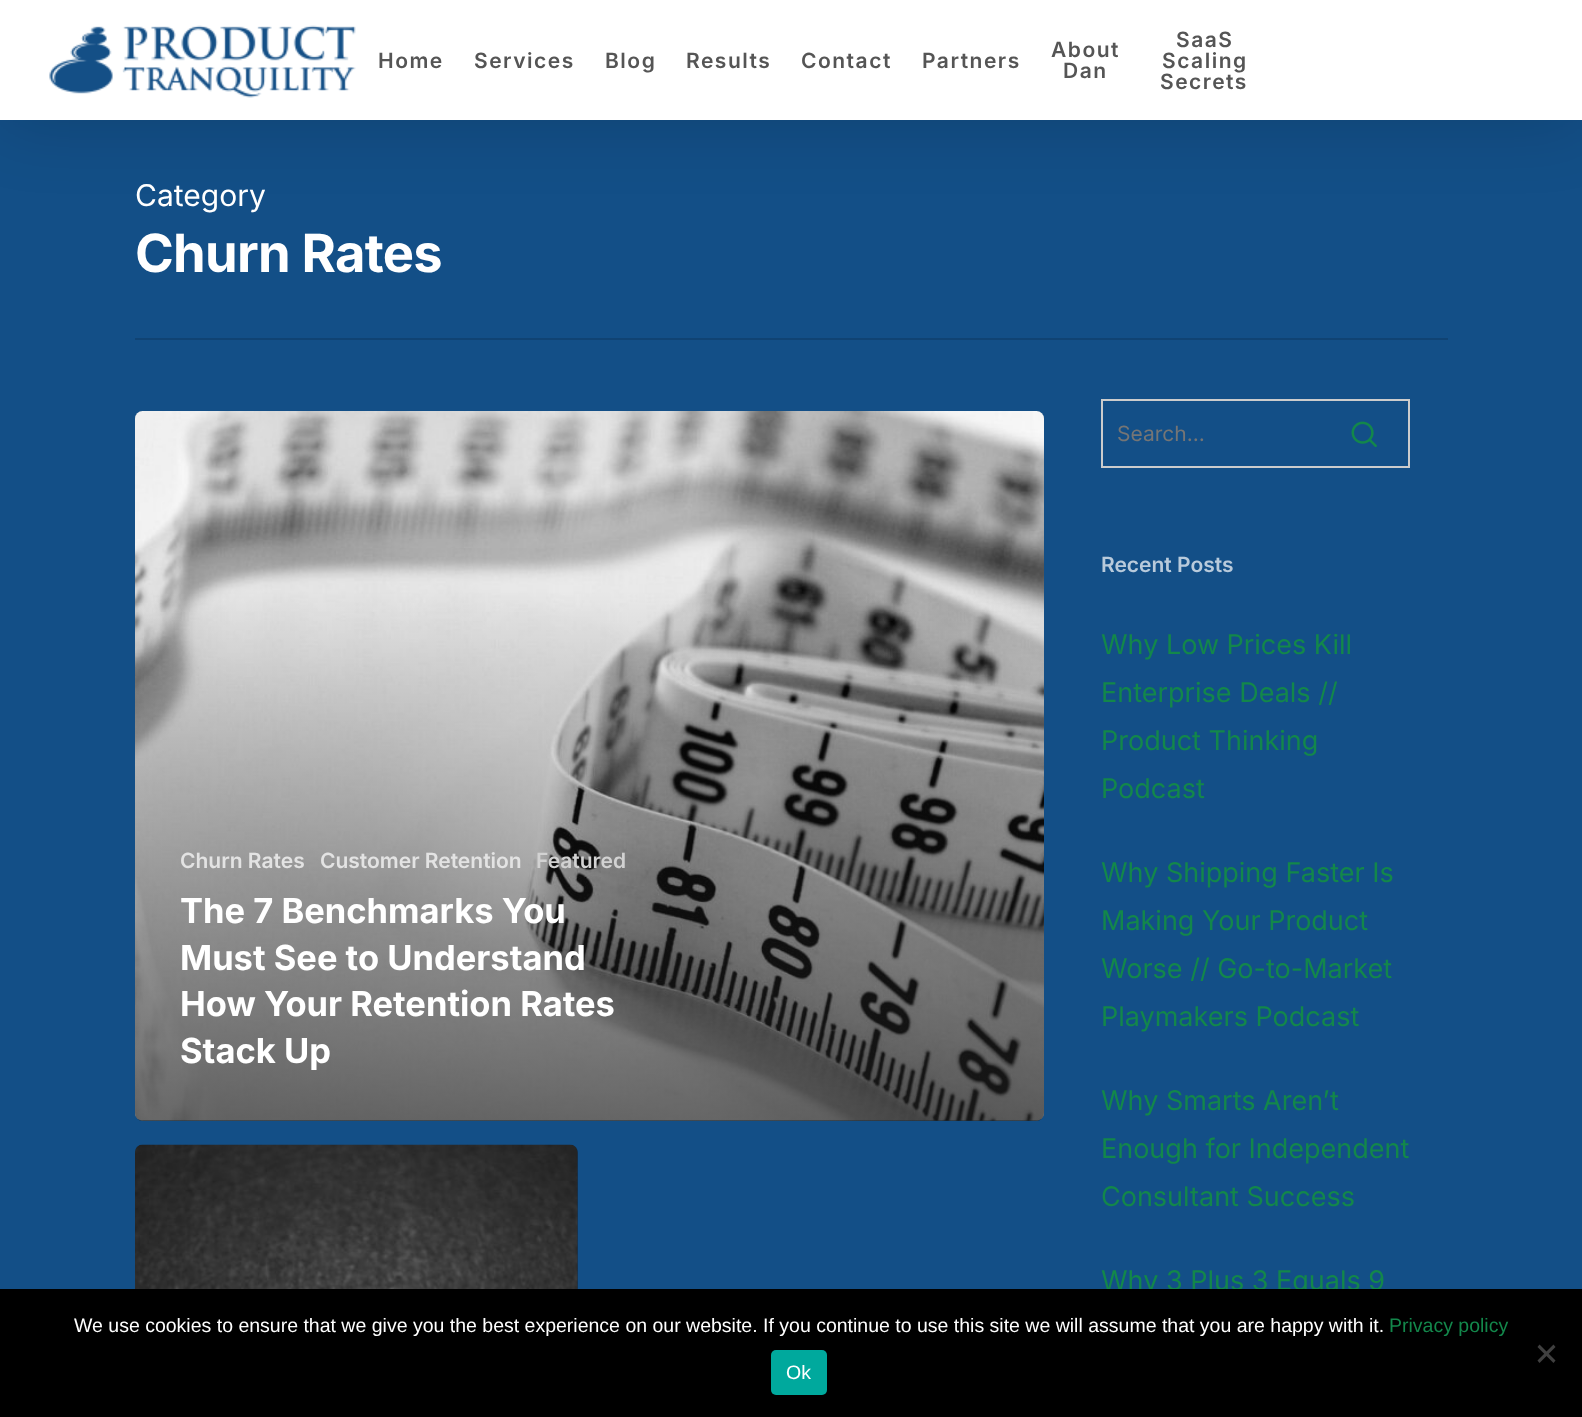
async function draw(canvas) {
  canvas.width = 1582
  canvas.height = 1417
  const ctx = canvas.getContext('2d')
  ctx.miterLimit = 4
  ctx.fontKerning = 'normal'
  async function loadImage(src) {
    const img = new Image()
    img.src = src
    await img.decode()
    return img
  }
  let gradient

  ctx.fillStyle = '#134f87'
  ctx.fillRect(0, 0, 1582, 1417)
  ctx.fillStyle = '#00000026'
  ctx.filter = 'blur(34px)'
  ctx.beginPath()
  ctx.rect(0, 5, 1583, 120)
  ctx.fill()
  ctx.filter = 'none'
  ctx.fillStyle = '#fff'
  ctx.fillRect(0, 0, 1582, 120)
  ctx.drawImage(await loadImage('image0.png'), 49, 25, 307, 73)
  ctx.letterSpacing = '1.5px'
  ctx.font = '600 21px Inter'
  ctx.fillStyle = '#555'
  ctx.fillText('Home', 378, 68)
  ctx.fillText('Services', 474, 68)
  ctx.fillText('Blog', 605, 68)
  ctx.fillText('Results', 686, 68)
  ctx.fillText('Contact', 801, 68)
  ctx.fillText('Partners', 922, 68)
  ctx.fillText('About', 1051, 57)
  ctx.fillText('Dan', 1063, 78)
  ctx.fillText('SaaS', 1176, 47)
  ctx.fillText('Scaling', 1162, 68)
  ctx.fillText('Secrets', 1160, 89)
  ctx.fillStyle = '#104373'
  ctx.fillRect(135, 338, 1313, 2)
  ctx.letterSpacing = '0px'
  ctx.font = '30px Inter'
  ctx.fillStyle = '#fff'
  ctx.fillText('Category', 135, 206)
  ctx.letterSpacing = '-0.75px'
  ctx.font = 'bold 52.5px Inter'
  ctx.fillText('Churn Rates', 135, 272)
  ctx.fillStyle = '#0d385f'
  ctx.beginPath()
  ctx.roundRect(135, 411, 909, 710, 8)
  ctx.fill()
  ctx.drawImage(await loadImage('image1.png'), 135, 411, 909, 710)
  gradient = ctx.createLinearGradient(592, 590, 592, 1124)
  gradient.addColorStop(0, '#23232300')
  gradient.addColorStop(1, '#232323a6')
  ctx.fillStyle = gradient
  ctx.beginPath()
  ctx.roundRect(135, 590, 909, 531, [0, 0, 8, 8])
  ctx.fill()
  ctx.letterSpacing = '0px'
  ctx.font = '600 21px Inter'
  ctx.fillStyle = '#e3e3e3'
  ctx.fillText('Churn Rates', 180, 868)
  ctx.fillText('Customer Retention', 320, 868)
  ctx.fillStyle = '#d2d2d2'
  ctx.fillText('Featured', 536, 868)
  ctx.font = 'bold 34.5px Inter'
  ctx.fillStyle = '#fff'
  ctx.fillText('The 7 Benchmarks You', 180, 923)
  ctx.fillText('Must See to Understand', 180, 970)
  ctx.fillText('How Your Retention Rates', 180, 1016)
  ctx.fillText('Stack Up', 180, 1063)
  ctx.fillStyle = '#0d375f'
  ctx.beginPath()
  ctx.roundRect(135, 1145, 443, 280, 8)
  ctx.fill()
  ctx.drawImage(await loadImage('image2.png'), 135, 1144, 443, 145)
  ctx.strokeStyle = '#ccc'
  ctx.lineWidth = 2
  ctx.strokeRect(1102, 400, 307, 67)
  ctx.font = '21px Inter'
  ctx.fillStyle = '#757575'
  ctx.fillText('Search...', 1117, 441)
  ctx.drawImage(await loadImage('image3.png'), 1351, 421, 26, 26)
  ctx.font = '600 21px Inter'
  ctx.fillStyle = '#b8cadb'
  ctx.fillText('Recent Posts', 1101, 572)
  ctx.font = '27px Inter'
  ctx.fillStyle = '#13874b'
  ctx.fillText('Why Low Prices Kill', 1101, 654)
  ctx.fillText('Enterprise Deals //', 1101, 702)
  ctx.fillText('Product Thinking', 1101, 750)
  ctx.fillText('Podcast', 1101, 798)
  ctx.fillText('Why Shipping Faster Is', 1101, 882)
  ctx.fillText('Making Your Product', 1101, 930)
  ctx.fillText('Worse // Go-to-Market', 1101, 978)
  ctx.fillText('Playmakers Podcast', 1101, 1026)
  ctx.fillText('Why Smarts Aren’t', 1101, 1110)
  ctx.fillText('Enough for Independent', 1101, 1158)
  ctx.fillText('Consultant Success', 1101, 1206)
  ctx.fillText('Why 3 Plus 3 Equals 9', 1101, 1290)
  ctx.fillStyle = '#000'
  ctx.fillRect(0, 1289, 1582, 128)
  ctx.font = '19.5px Liberation Sans'
  ctx.fillStyle = '#fff'
  ctx.fillText('We use cookies to ensure that we give you the best experience on our website. If you continue to use this site we will assume that you are happy with it.', 74, 1332)
  ctx.fillStyle = '#13874b'
  ctx.fillText('Privacy policy', 1389, 1332)
  ctx.fillStyle = '#404040'
  ctx.beginPath()
  ctx.moveTo(1553.5, 1344.5)
  ctx.lineTo(1555.5, 1347)
  ctx.lineTo(1539.5, 1363)
  ctx.lineTo(1537.5, 1360.5)
  ctx.closePath()
  ctx.fill()
  ctx.beginPath()
  ctx.moveTo(1537.5, 1347)
  ctx.lineTo(1539.5, 1344.5)
  ctx.lineTo(1555.5, 1360.5)
  ctx.lineTo(1553.5, 1363)
  ctx.closePath()
  ctx.fill()
  ctx.fillStyle = '#00a99d'
  ctx.beginPath()
  ctx.roundRect(771, 1350, 56, 45, 5)
  ctx.fill()
  ctx.fillStyle = '#fff'
  ctx.fillText('Ok', 786, 1379)
}

draw(document.querySelector('canvas'))
